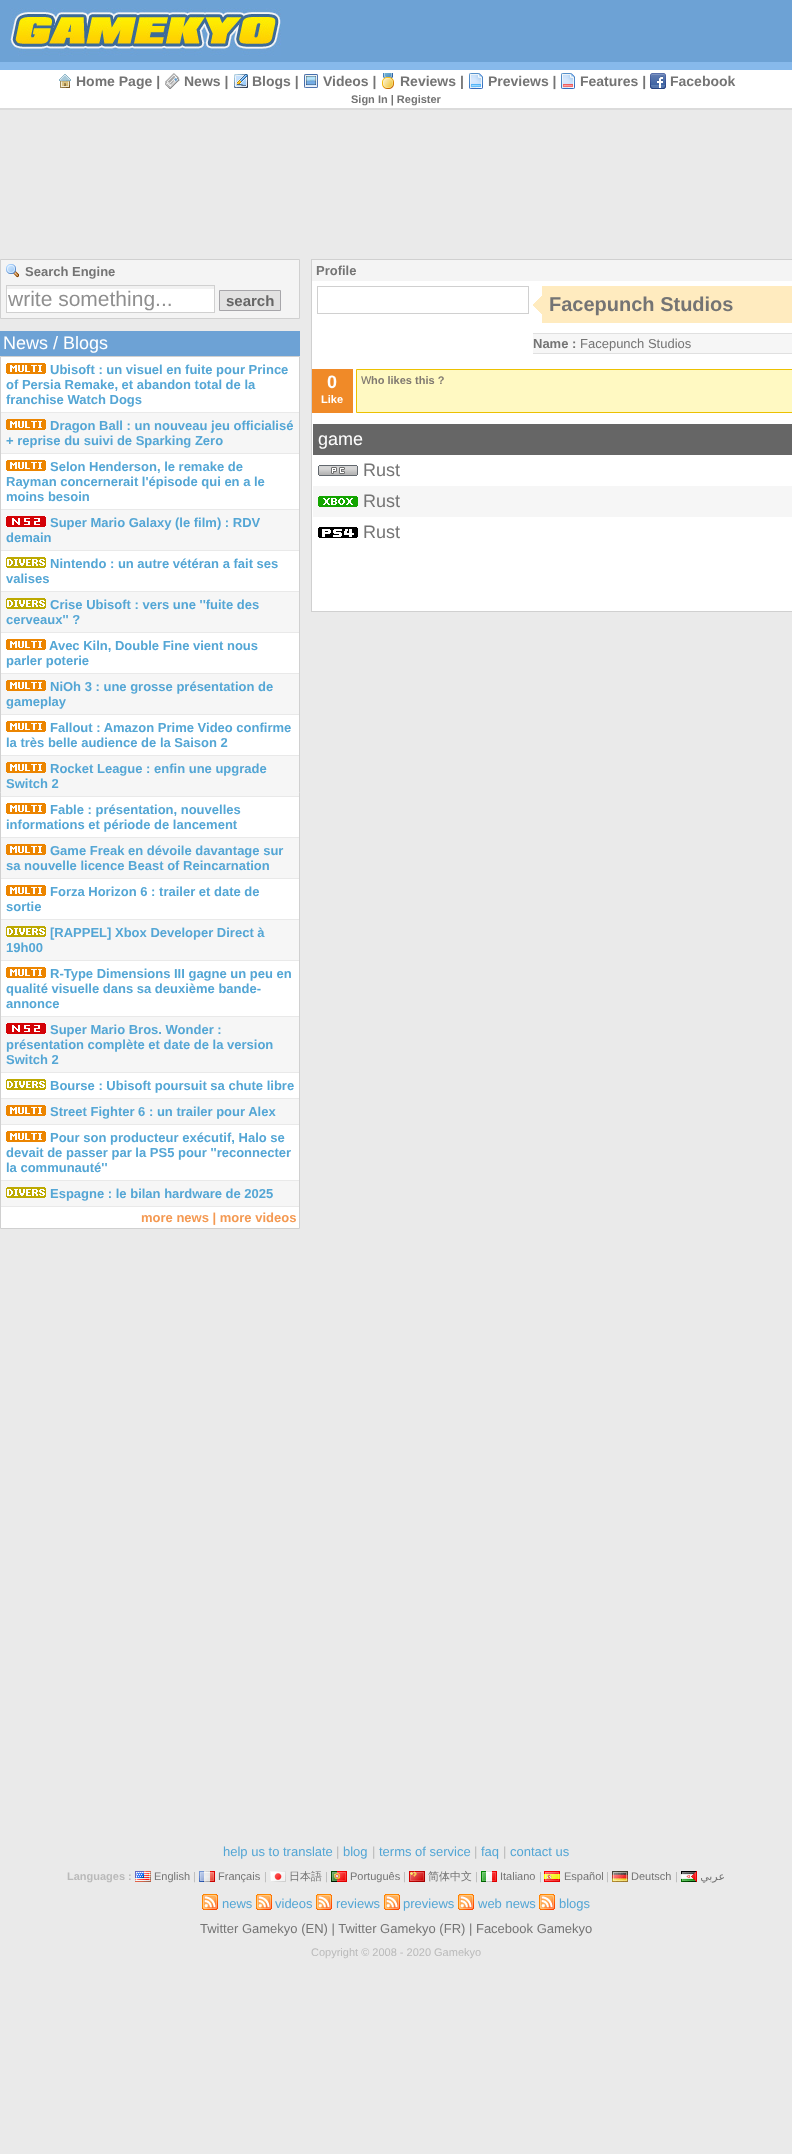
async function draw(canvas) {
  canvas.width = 792
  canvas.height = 2154
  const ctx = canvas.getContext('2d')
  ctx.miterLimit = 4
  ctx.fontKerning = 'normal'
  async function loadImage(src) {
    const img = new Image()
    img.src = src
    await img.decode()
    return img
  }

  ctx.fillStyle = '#eaeaea'
  ctx.fillRect(0, 0, 792, 2154)
  ctx.fillStyle = '#6da2d5'
  ctx.fillRect(0, 0, 792, 62)
  ctx.fillStyle = '#87b9eb'
  ctx.fillRect(0, 62, 792, 8)
  ctx.drawImage(await loadImage('image0.png'), 10, 8, 271, 48)
  ctx.fillStyle = '#fff'
  ctx.fillRect(0, 70, 792, 38)
  ctx.drawImage(await loadImage('image1.png'), 59, 74, 12, 14)
  ctx.font = 'bold 14px Liberation Sans'
  ctx.fillStyle = '#747474'
  ctx.fillText('Home Page |', 76, 86)
  ctx.drawImage(await loadImage('image2.png'), 165, 73, 15, 16)
  ctx.fillText('News |', 184, 86)
  ctx.drawImage(await loadImage('image3.png'), 234, 74, 14, 14)
  ctx.fillText('Blogs |', 252, 86)
  ctx.drawImage(await loadImage('image4.png'), 304, 74, 14, 14)
  ctx.fillText('Videos |', 323, 86)
  ctx.drawImage(await loadImage('image5.png'), 382, 73, 12, 16)
  ctx.fillText('Reviews |', 400, 86)
  ctx.drawImage(await loadImage('image6.png'), 469, 73, 14, 16)
  ctx.fillText('Previews |', 488, 86)
  ctx.drawImage(await loadImage('image7.png'), 561, 73, 14, 16)
  ctx.fillText('Features |', 580, 86)
  ctx.drawImage(await loadImage('image8.png'), 650, 73, 16, 16)
  ctx.fillText('Facebook', 670, 86)
  ctx.fillStyle = '#dbdbdb'
  ctx.fillRect(0, 108, 792, 2)
  ctx.font = 'bold 11px Liberation Sans'
  ctx.fillStyle = '#747474'
  ctx.fillText('Sign In | Register', 351, 103)
  ctx.fillStyle = '#f4f4f4'
  ctx.beginPath()
  ctx.rect(0.5, 259.5, 299, 59)
  ctx.fill()
  ctx.strokeStyle = '#d0d0d0'
  ctx.stroke()
  ctx.drawImage(await loadImage('image9.png'), 6, 264, 13, 14)
  ctx.font = 'bold 13px Liberation Sans'
  ctx.fillStyle = '#747474'
  ctx.fillText('Search Engine', 25, 276)
  ctx.fillStyle = '#fff'
  ctx.fillRect(7, 289, 207, 23)
  ctx.fillStyle = '#f1f1f1'
  ctx.fillRect(6, 286, 209, 3)
  ctx.strokeRect(6.5, 285.5, 208, 27)
  ctx.font = '21px Liberation Sans'
  ctx.fillStyle = '#8f8f8f'
  ctx.fillText('write something...', 8, 306)
  ctx.fillStyle = '#e2e2e2'
  ctx.beginPath()
  ctx.rect(219.5, 290.5, 61, 20)
  ctx.fill()
  ctx.strokeStyle = '#a7a6aa'
  ctx.stroke()
  ctx.font = 'bold 15px Liberation Sans'
  ctx.fillStyle = '#666'
  ctx.fillText('search', 226, 306)
  ctx.fillStyle = '#6da2d5'
  ctx.fillRect(0, 331, 300, 25)
  ctx.font = '18px Liberation Sans'
  ctx.fillStyle = '#fff'
  ctx.fillText('News / Blogs', 3, 349)
  ctx.beginPath()
  ctx.rect(0.5, 356.5, 299, 872)
  ctx.fill()
  ctx.strokeStyle = '#d0d0d0'
  ctx.stroke()
  ctx.fillStyle = '#e9e9e9'
  ctx.fillRect(1, 412, 298, 1)
  ctx.drawImage(await loadImage('image10.png'), 6, 363, 40, 11)
  ctx.font = 'bold 13px Liberation Sans'
  ctx.fillStyle = '#54a6d5'
  ctx.fillText('Ubisoft : un visuel en fuite pour Prince', 50, 374)
  ctx.fillText('of Persia Remake, et abandon total de la', 6, 389)
  ctx.fillText('franchise Watch Dogs', 6, 404)
  ctx.fillStyle = '#f6f6f6'
  ctx.fillRect(1, 413, 298, 40)
  ctx.fillStyle = '#e9e9e9'
  ctx.fillRect(1, 453, 298, 1)
  ctx.drawImage(await loadImage('image11.png'), 6, 419, 40, 11)
  ctx.fillStyle = '#54a6d5'
  ctx.fillText('Dragon Ball : un nouveau jeu officialisé', 50, 430)
  ctx.fillText('+ reprise du suivi de Sparking Zero', 6, 445)
  ctx.fillStyle = '#e9e9e9'
  ctx.fillRect(1, 509, 298, 1)
  ctx.drawImage(await loadImage('image10.png'), 6, 460, 40, 11)
  ctx.fillStyle = '#54a6d5'
  ctx.fillText('Selon Henderson, le remake de', 50, 471)
  ctx.fillText('Rayman concernerait l\'épisode qui en a le', 6, 486)
  ctx.fillText('moins besoin', 6, 501)
  ctx.fillStyle = '#f6f6f6'
  ctx.fillRect(1, 510, 298, 40)
  ctx.fillStyle = '#e9e9e9'
  ctx.fillRect(1, 550, 298, 1)
  ctx.drawImage(await loadImage('image12.png'), 6, 516, 40, 11)
  ctx.fillStyle = '#54a6d5'
  ctx.fillText('Super Mario Galaxy (le film) : RDV', 50, 527)
  ctx.fillText('demain', 6, 542)
  ctx.fillStyle = '#e9e9e9'
  ctx.fillRect(1, 591, 298, 1)
  ctx.drawImage(await loadImage('image13.png'), 6, 557, 40, 11)
  ctx.fillStyle = '#54a6d5'
  ctx.fillText('Nintendo : un autre vétéran a fait ses', 50, 568)
  ctx.fillText('valises', 6, 583)
  ctx.fillStyle = '#f6f6f6'
  ctx.fillRect(1, 592, 298, 40)
  ctx.fillStyle = '#e9e9e9'
  ctx.fillRect(1, 632, 298, 1)
  ctx.drawImage(await loadImage('image14.png'), 6, 598, 40, 11)
  ctx.fillStyle = '#54a6d5'
  ctx.fillText('Crise Ubisoft : vers une \'\'fuite des', 50, 609)
  ctx.fillText('cerveaux\'\' ?', 6, 624)
  ctx.fillStyle = '#e9e9e9'
  ctx.fillRect(1, 673, 298, 1)
  ctx.drawImage(await loadImage('image10.png'), 6, 639, 40, 11)
  ctx.fillStyle = '#54a6d5'
  ctx.fillText('Avec Kiln, Double Fine vient nous', 49, 650)
  ctx.fillText('parler poterie', 6, 665)
  ctx.fillStyle = '#f6f6f6'
  ctx.fillRect(1, 674, 298, 40)
  ctx.fillStyle = '#e9e9e9'
  ctx.fillRect(1, 714, 298, 1)
  ctx.drawImage(await loadImage('image11.png'), 6, 680, 40, 11)
  ctx.fillStyle = '#54a6d5'
  ctx.fillText('NiOh 3 : une grosse présentation de', 50, 691)
  ctx.fillText('gameplay', 6, 706)
  ctx.fillStyle = '#e9e9e9'
  ctx.fillRect(1, 755, 298, 1)
  ctx.drawImage(await loadImage('image10.png'), 6, 721, 40, 11)
  ctx.fillStyle = '#54a6d5'
  ctx.fillText('Fallout : Amazon Prime Video confirme', 50, 732)
  ctx.fillText('la très belle audience de la Saison 2', 6, 747)
  ctx.fillStyle = '#f6f6f6'
  ctx.fillRect(1, 756, 298, 40)
  ctx.fillStyle = '#e9e9e9'
  ctx.fillRect(1, 796, 298, 1)
  ctx.drawImage(await loadImage('image11.png'), 6, 762, 40, 11)
  ctx.fillStyle = '#54a6d5'
  ctx.fillText('Rocket League : enfin une upgrade', 50, 773)
  ctx.fillText('Switch 2', 6, 788)
  ctx.fillStyle = '#e9e9e9'
  ctx.fillRect(1, 837, 298, 1)
  ctx.drawImage(await loadImage('image10.png'), 6, 803, 40, 11)
  ctx.fillStyle = '#54a6d5'
  ctx.fillText('Fable : présentation, nouvelles', 50, 814)
  ctx.fillText('informations et période de lancement', 6, 829)
  ctx.fillStyle = '#f6f6f6'
  ctx.fillRect(1, 838, 298, 40)
  ctx.fillStyle = '#e9e9e9'
  ctx.fillRect(1, 878, 298, 1)
  ctx.drawImage(await loadImage('image11.png'), 6, 844, 40, 11)
  ctx.fillStyle = '#54a6d5'
  ctx.fillText('Game Freak en dévoile davantage sur', 50, 855)
  ctx.fillText('sa nouvelle licence Beast of Reincarnation', 6, 870)
  ctx.fillStyle = '#e9e9e9'
  ctx.fillRect(1, 919, 298, 1)
  ctx.drawImage(await loadImage('image10.png'), 6, 885, 40, 11)
  ctx.fillStyle = '#54a6d5'
  ctx.fillText('Forza Horizon 6 : trailer et date de', 50, 896)
  ctx.fillText('sortie', 6, 911)
  ctx.fillStyle = '#f6f6f6'
  ctx.fillRect(1, 920, 298, 40)
  ctx.fillStyle = '#e9e9e9'
  ctx.fillRect(1, 960, 298, 1)
  ctx.drawImage(await loadImage('image14.png'), 6, 926, 40, 11)
  ctx.fillStyle = '#54a6d5'
  ctx.fillText('[RAPPEL] Xbox Developer Direct à', 50, 937)
  ctx.fillText('19h00', 6, 952)
  ctx.fillStyle = '#e9e9e9'
  ctx.fillRect(1, 1016, 298, 1)
  ctx.drawImage(await loadImage('image10.png'), 6, 967, 40, 11)
  ctx.fillStyle = '#54a6d5'
  ctx.fillText('R-Type Dimensions III gagne un peu en', 50, 978)
  ctx.fillText('qualité visuelle dans sa deuxième bande-', 6, 993)
  ctx.fillText('annonce', 6, 1008)
  ctx.fillStyle = '#f6f6f6'
  ctx.fillRect(1, 1017, 298, 55)
  ctx.fillStyle = '#e9e9e9'
  ctx.fillRect(1, 1072, 298, 1)
  ctx.drawImage(await loadImage('image12.png'), 6, 1023, 40, 11)
  ctx.fillStyle = '#54a6d5'
  ctx.fillText('Super Mario Bros. Wonder :', 50, 1034)
  ctx.fillText('présentation complète et date de la version', 6, 1049)
  ctx.fillText('Switch 2', 6, 1064)
  ctx.fillStyle = '#e9e9e9'
  ctx.fillRect(1, 1098, 298, 1)
  ctx.drawImage(await loadImage('image13.png'), 6, 1079, 40, 11)
  ctx.fillStyle = '#54a6d5'
  ctx.fillText('Bourse : Ubisoft poursuit sa chute libre', 50, 1090)
  ctx.fillStyle = '#f6f6f6'
  ctx.fillRect(1, 1099, 298, 25)
  ctx.fillStyle = '#e9e9e9'
  ctx.fillRect(1, 1124, 298, 1)
  ctx.drawImage(await loadImage('image11.png'), 6, 1105, 40, 11)
  ctx.fillStyle = '#54a6d5'
  ctx.fillText('Street Fighter 6 : un trailer pour Alex', 50, 1116)
  ctx.fillStyle = '#e9e9e9'
  ctx.fillRect(1, 1180, 298, 1)
  ctx.drawImage(await loadImage('image10.png'), 6, 1131, 40, 11)
  ctx.fillStyle = '#54a6d5'
  ctx.fillText('Pour son producteur exécutif, Halo se', 50, 1142)
  ctx.fillText('devait de passer par la PS5 pour \'\'reconnecter', 6, 1157)
  ctx.fillText('la communauté\'\'', 6, 1172)
  ctx.fillStyle = '#f6f6f6'
  ctx.fillRect(1, 1181, 298, 25)
  ctx.fillStyle = '#e9e9e9'
  ctx.fillRect(1, 1206, 298, 1)
  ctx.drawImage(await loadImage('image14.png'), 6, 1187, 40, 11)
  ctx.fillStyle = '#54a6d5'
  ctx.fillText('Espagne : le bilan hardware de 2025', 50, 1198)
  ctx.fillStyle = '#f49952'
  ctx.fillText('more news | more videos', 141, 1222)
  ctx.fillStyle = '#f4f4f4'
  ctx.fillRect(312, 260, 480, 21)
  ctx.strokeRect(311.5, 259.5, 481, 352)
  ctx.fillStyle = '#747474'
  ctx.fillText('Profile', 316, 275)
  ctx.fillStyle = '#fff'
  ctx.fillRect(312, 281, 480, 330)
  ctx.strokeRect(317.5, 286.5, 211, 27)
  ctx.drawImage(await loadImage('image15.png'), 533, 296, 9, 18)
  ctx.fillStyle = '#ffebbf'
  ctx.fillRect(542, 286, 250, 37)
  ctx.font = 'bold 20px Liberation Sans'
  ctx.fillStyle = '#747474'
  ctx.fillText('Facepunch Studios', 549, 311)
  ctx.fillStyle = '#f6f6f6'
  ctx.fillRect(533, 334, 259, 19)
  ctx.fillStyle = '#e0e0e0'
  ctx.fillRect(533, 333, 259, 1)
  ctx.fillRect(533, 353, 259, 1)
  ctx.font = 'bold 13px Liberation Sans'
  ctx.fillStyle = '#747474'
  ctx.fillText('Name :', 533, 348)
  ctx.font = '13px Liberation Sans'
  ctx.fillText('Facepunch Studios', 580, 348)
  ctx.fillStyle = '#f08a28'
  ctx.fillRect(312, 369, 41, 44)
  ctx.font = 'bold 18px Liberation Sans'
  ctx.fillStyle = '#fff'
  ctx.fillText('0', 327, 388)
  ctx.font = 'bold 11px Liberation Sans'
  ctx.fillText('Like', 321, 403)
  ctx.fillStyle = '#fff9c2'
  ctx.beginPath()
  ctx.rect(356.5, 369.5, 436, 43)
  ctx.fill()
  ctx.strokeStyle = '#ecc101'
  ctx.stroke()
  ctx.font = '500 11px Noto Sans'
  ctx.fillStyle = '#817a71'
  ctx.fillText('W', 361, 384)
  ctx.font = 'bold 11px Liberation Sans'
  ctx.fillText('ho likes this ?', 371, 384)
  ctx.fillStyle = '#666'
  ctx.fillRect(313, 424, 479, 31)
  ctx.font = '18px Liberation Sans'
  ctx.fillStyle = '#fff'
  ctx.fillText('game', 318, 445)
  ctx.drawImage(await loadImage('image16.png'), 318, 465, 40, 11)
  ctx.fillStyle = '#747474'
  ctx.fillText('Rust', 363, 476)
  ctx.fillStyle = '#f6f6f6'
  ctx.fillRect(313, 486, 479, 31)
  ctx.drawImage(await loadImage('image17.png'), 318, 496, 40, 11)
  ctx.fillStyle = '#747474'
  ctx.fillText('Rust', 363, 507)
  ctx.drawImage(await loadImage('image18.png'), 318, 527, 40, 11)
  ctx.fillText('Rust', 363, 538)
  ctx.font = '13px Liberation Sans'
  ctx.fillStyle = '#54a6d5'
  ctx.fillText('help us to translate', 223, 1856)
  ctx.fillStyle = '#bababa'
  ctx.fillText('|', 336, 1856)
  ctx.fillStyle = '#54a6d5'
  ctx.fillText('blog', 343, 1856)
  ctx.fillStyle = '#bababa'
  ctx.fillText('|', 372, 1856)
  ctx.fillStyle = '#54a6d5'
  ctx.fillText('terms of service', 379, 1856)
  ctx.fillStyle = '#bababa'
  ctx.fillText('|', 474, 1856)
  ctx.fillStyle = '#54a6d5'
  ctx.fillText('faq', 481, 1856)
  ctx.fillStyle = '#bababa'
  ctx.fillText('|', 503, 1856)
  ctx.fillStyle = '#54a6d5'
  ctx.fillText('contact us', 510, 1856)
  ctx.font = 'bold 11px Liberation Sans'
  ctx.fillStyle = '#bababa'
  ctx.fillText('Languages :', 67, 1880)
  ctx.drawImage(await loadImage('image19.png'), 135, 1871, 16, 11)
  ctx.font = '11px Liberation Sans'
  ctx.fillStyle = '#747474'
  ctx.fillText('English', 154, 1880)
  ctx.fillStyle = '#bababa'
  ctx.fillText('|', 193, 1880)
  ctx.drawImage(await loadImage('image20.png'), 199, 1871, 16, 11)
  ctx.fillStyle = '#747474'
  ctx.fillText('Français', 218, 1880)
  ctx.fillStyle = '#bababa'
  ctx.fillText('|', 264, 1880)
  ctx.drawImage(await loadImage('image21.png'), 270, 1871, 16, 11)
  ctx.font = '500 11px WenQuanYi Zen Hei'
  ctx.fillStyle = '#747474'
  ctx.fillText('日本語', 289, 1880)
  ctx.font = '11px Liberation Sans'
  ctx.fillStyle = '#bababa'
  ctx.fillText('|', 325, 1880)
  ctx.drawImage(await loadImage('image22.png'), 331, 1871, 16, 11)
  ctx.fillStyle = '#747474'
  ctx.fillText('Português', 350, 1880)
  ctx.fillStyle = '#bababa'
  ctx.fillText('|', 403, 1880)
  ctx.drawImage(await loadImage('image23.png'), 409, 1871, 16, 11)
  ctx.font = '500 11px WenQuanYi Zen Hei'
  ctx.fillStyle = '#747474'
  ctx.fillText('简体中文', 428, 1880)
  ctx.font = '11px Liberation Sans'
  ctx.fillStyle = '#bababa'
  ctx.fillText('|', 475, 1880)
  ctx.drawImage(await loadImage('image24.png'), 481, 1871, 16, 11)
  ctx.fillStyle = '#747474'
  ctx.fillText('Italiano', 500, 1880)
  ctx.fillStyle = '#bababa'
  ctx.fillText('|', 539, 1880)
  ctx.drawImage(await loadImage('image25.png'), 544, 1871, 16, 11)
  ctx.fillStyle = '#747474'
  ctx.fillText('Español', 564, 1880)
  ctx.fillStyle = '#bababa'
  ctx.fillText('|', 606, 1880)
  ctx.drawImage(await loadImage('image26.png'), 612, 1871, 16, 11)
  ctx.fillStyle = '#747474'
  ctx.fillText('Deutsch', 631, 1880)
  ctx.fillStyle = '#bababa'
  ctx.fillText('|', 675, 1880)
  ctx.drawImage(await loadImage('image27.png'), 681, 1871, 16, 11)
  ctx.direction = 'rtl'
  ctx.font = '11px DejaVu Sans'
  ctx.fillStyle = '#747474'
  ctx.fillText('عربي', 725, 1880)
  ctx.drawImage(await loadImage('image28.png'), 202, 1894, 16, 16)
  ctx.direction = 'ltr'
  ctx.font = '13px Liberation Sans'
  ctx.fillStyle = '#54a6d5'
  ctx.fillText('news', 222, 1908)
  ctx.drawImage(await loadImage('image28.png'), 256, 1894, 16, 16)
  ctx.fillText('videos', 275, 1908)
  ctx.drawImage(await loadImage('image28.png'), 316, 1894, 16, 16)
  ctx.fillText('reviews', 336, 1908)
  ctx.drawImage(await loadImage('image28.png'), 384, 1894, 16, 16)
  ctx.fillText('previews', 403, 1908)
  ctx.drawImage(await loadImage('image28.png'), 458, 1894, 16, 16)
  ctx.fillText('web news', 478, 1908)
  ctx.drawImage(await loadImage('image28.png'), 539, 1894, 16, 16)
  ctx.fillText('blogs', 559, 1908)
  ctx.fillStyle = '#747474'
  ctx.fillText('Twitter Gamekyo (EN) | Twitter Gamekyo (FR) | Facebook Gamekyo', 200, 1933)
  ctx.font = '11px Liberation Sans'
  ctx.fillStyle = '#bababa'
  ctx.fillText('Copyright © 2008 - 2020 Gamekyo', 311, 1956)
}

draw(document.querySelector('canvas'))
